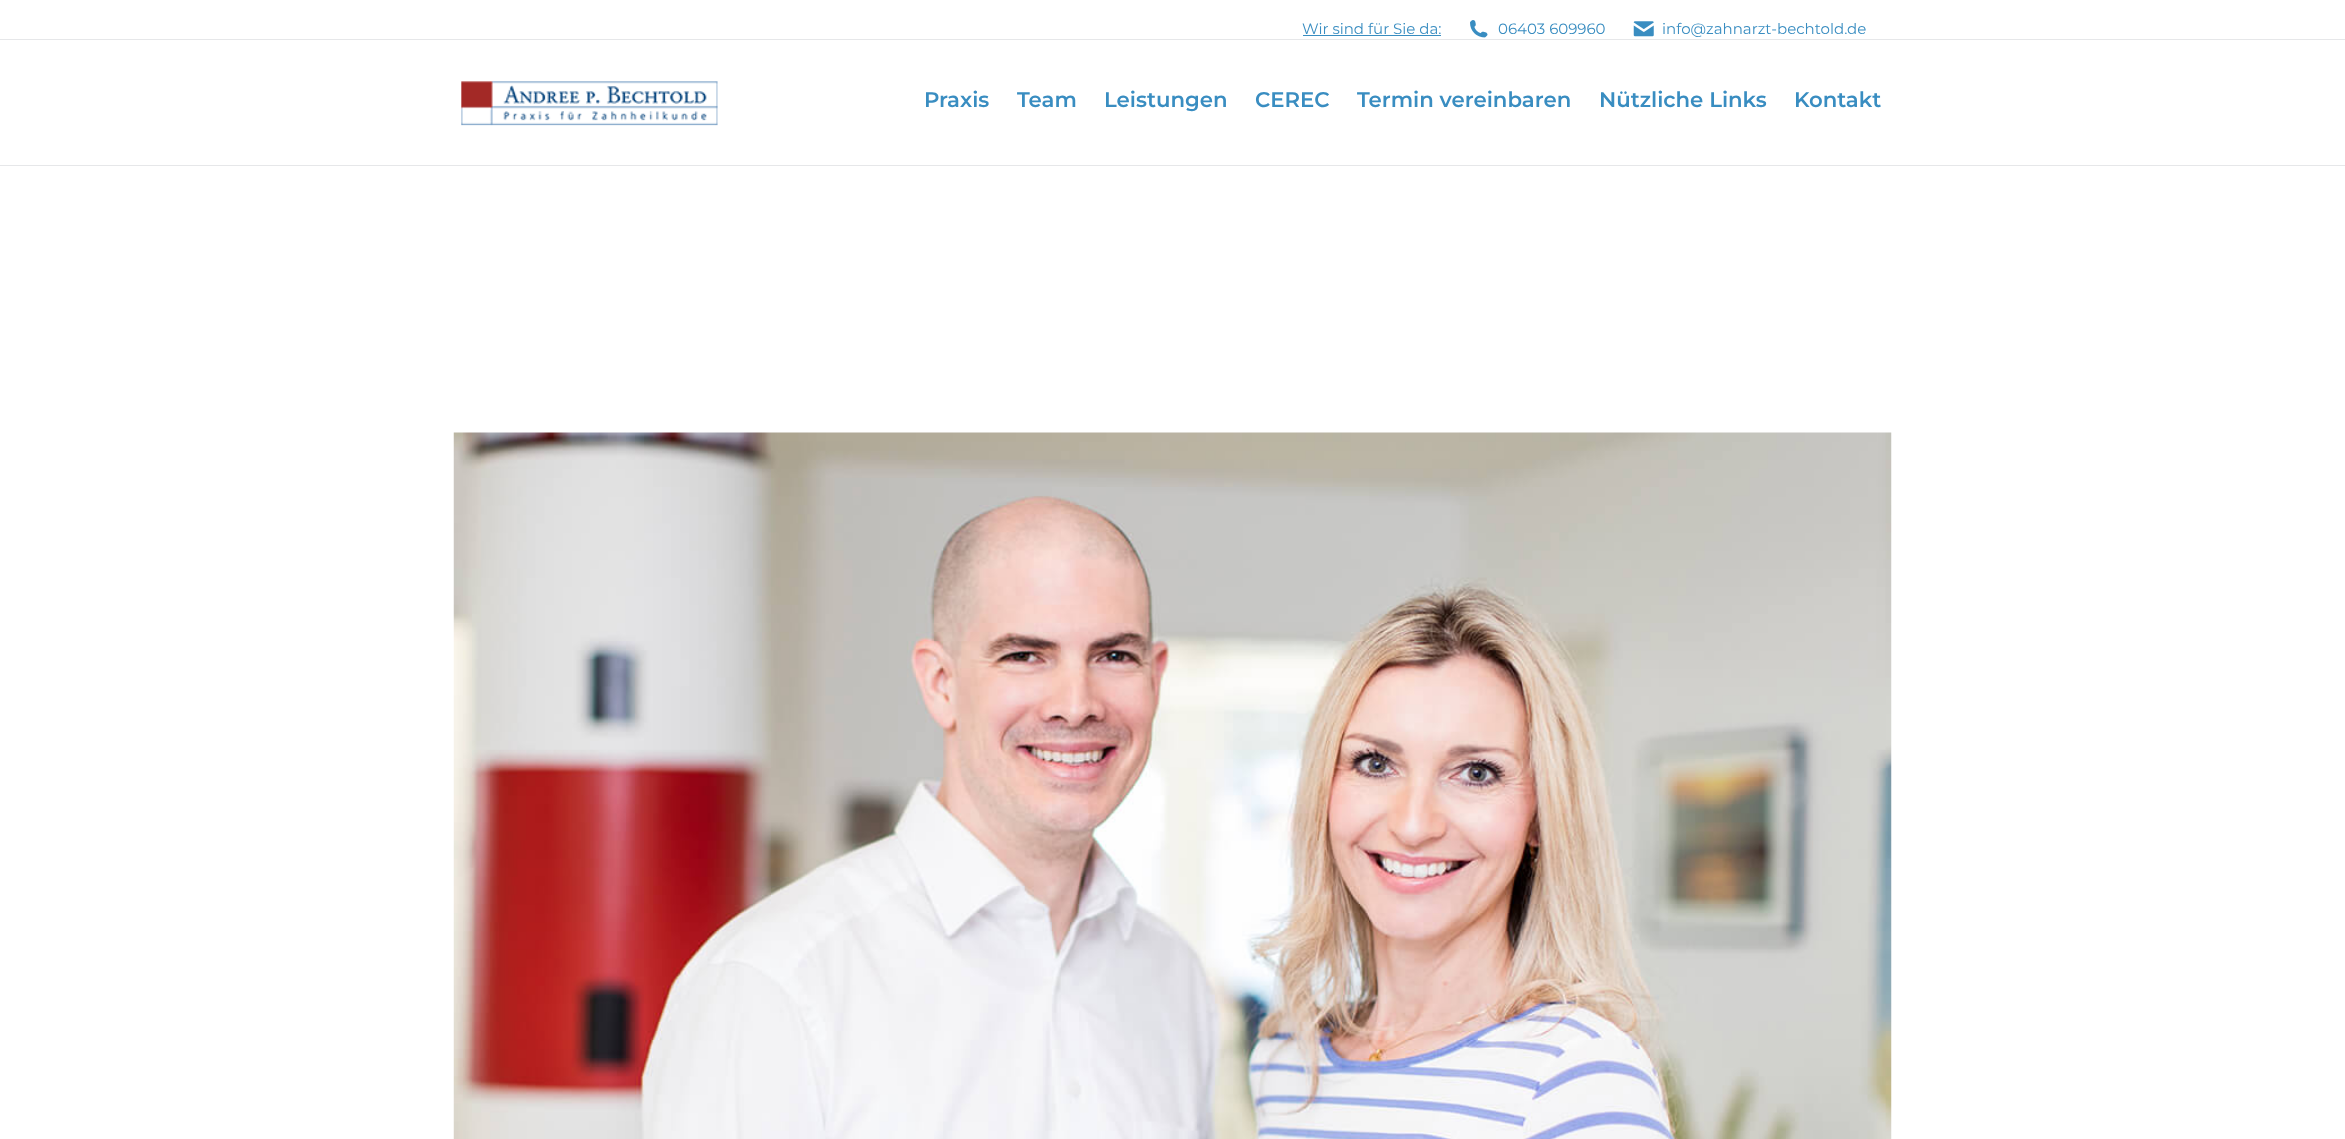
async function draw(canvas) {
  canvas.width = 2345
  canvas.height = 1139
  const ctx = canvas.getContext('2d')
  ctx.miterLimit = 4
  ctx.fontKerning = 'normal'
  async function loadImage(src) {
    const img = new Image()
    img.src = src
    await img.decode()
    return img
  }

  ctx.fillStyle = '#fff'
  ctx.fillRect(0, 0, 2345, 1139)
  ctx.fillStyle = '#e6e7e9'
  ctx.fillRect(0, 165, 2345, 1)
  ctx.font = '15px Montserrat'
  ctx.fillStyle = '#398dc1'
  ctx.fillText('Wir sind für Sie da:', 1302, 34)
  ctx.fillRect(1303, 35, 138, 1)
  ctx.drawImage(await loadImage('image0.png'), 1470, 20, 18, 18)
  ctx.fillText('06403 609960', 1498, 34)
  ctx.drawImage(await loadImage('image1.png'), 1633, 21, 21, 16)
  ctx.fillText('info@zahnarzt-bechtold.de', 1662, 34)
  ctx.fillStyle = '#e6e7e9'
  ctx.fillRect(0, 39, 2345, 1)
  ctx.drawImage(await loadImage('image2.png'), 461, 81, 257, 45)
  ctx.font = '600 21.25px Montserrat'
  ctx.fillStyle = '#398dc1'
  ctx.fillText('Praxis', 924, 107)
  ctx.fillText('Team', 1017, 107)
  ctx.fillText('Leistungen', 1104, 107)
  ctx.fillText('CEREC', 1255, 107)
  ctx.fillText('Termin vereinbaren', 1357, 107)
  ctx.fillText('Nützliche Links', 1599, 107)
  ctx.fillText('Kontakt', 1794, 107)
  ctx.drawImage(await loadImage('image3.png'), 453, 432, 1439, 707)
}

draw(document.querySelector('canvas'))
